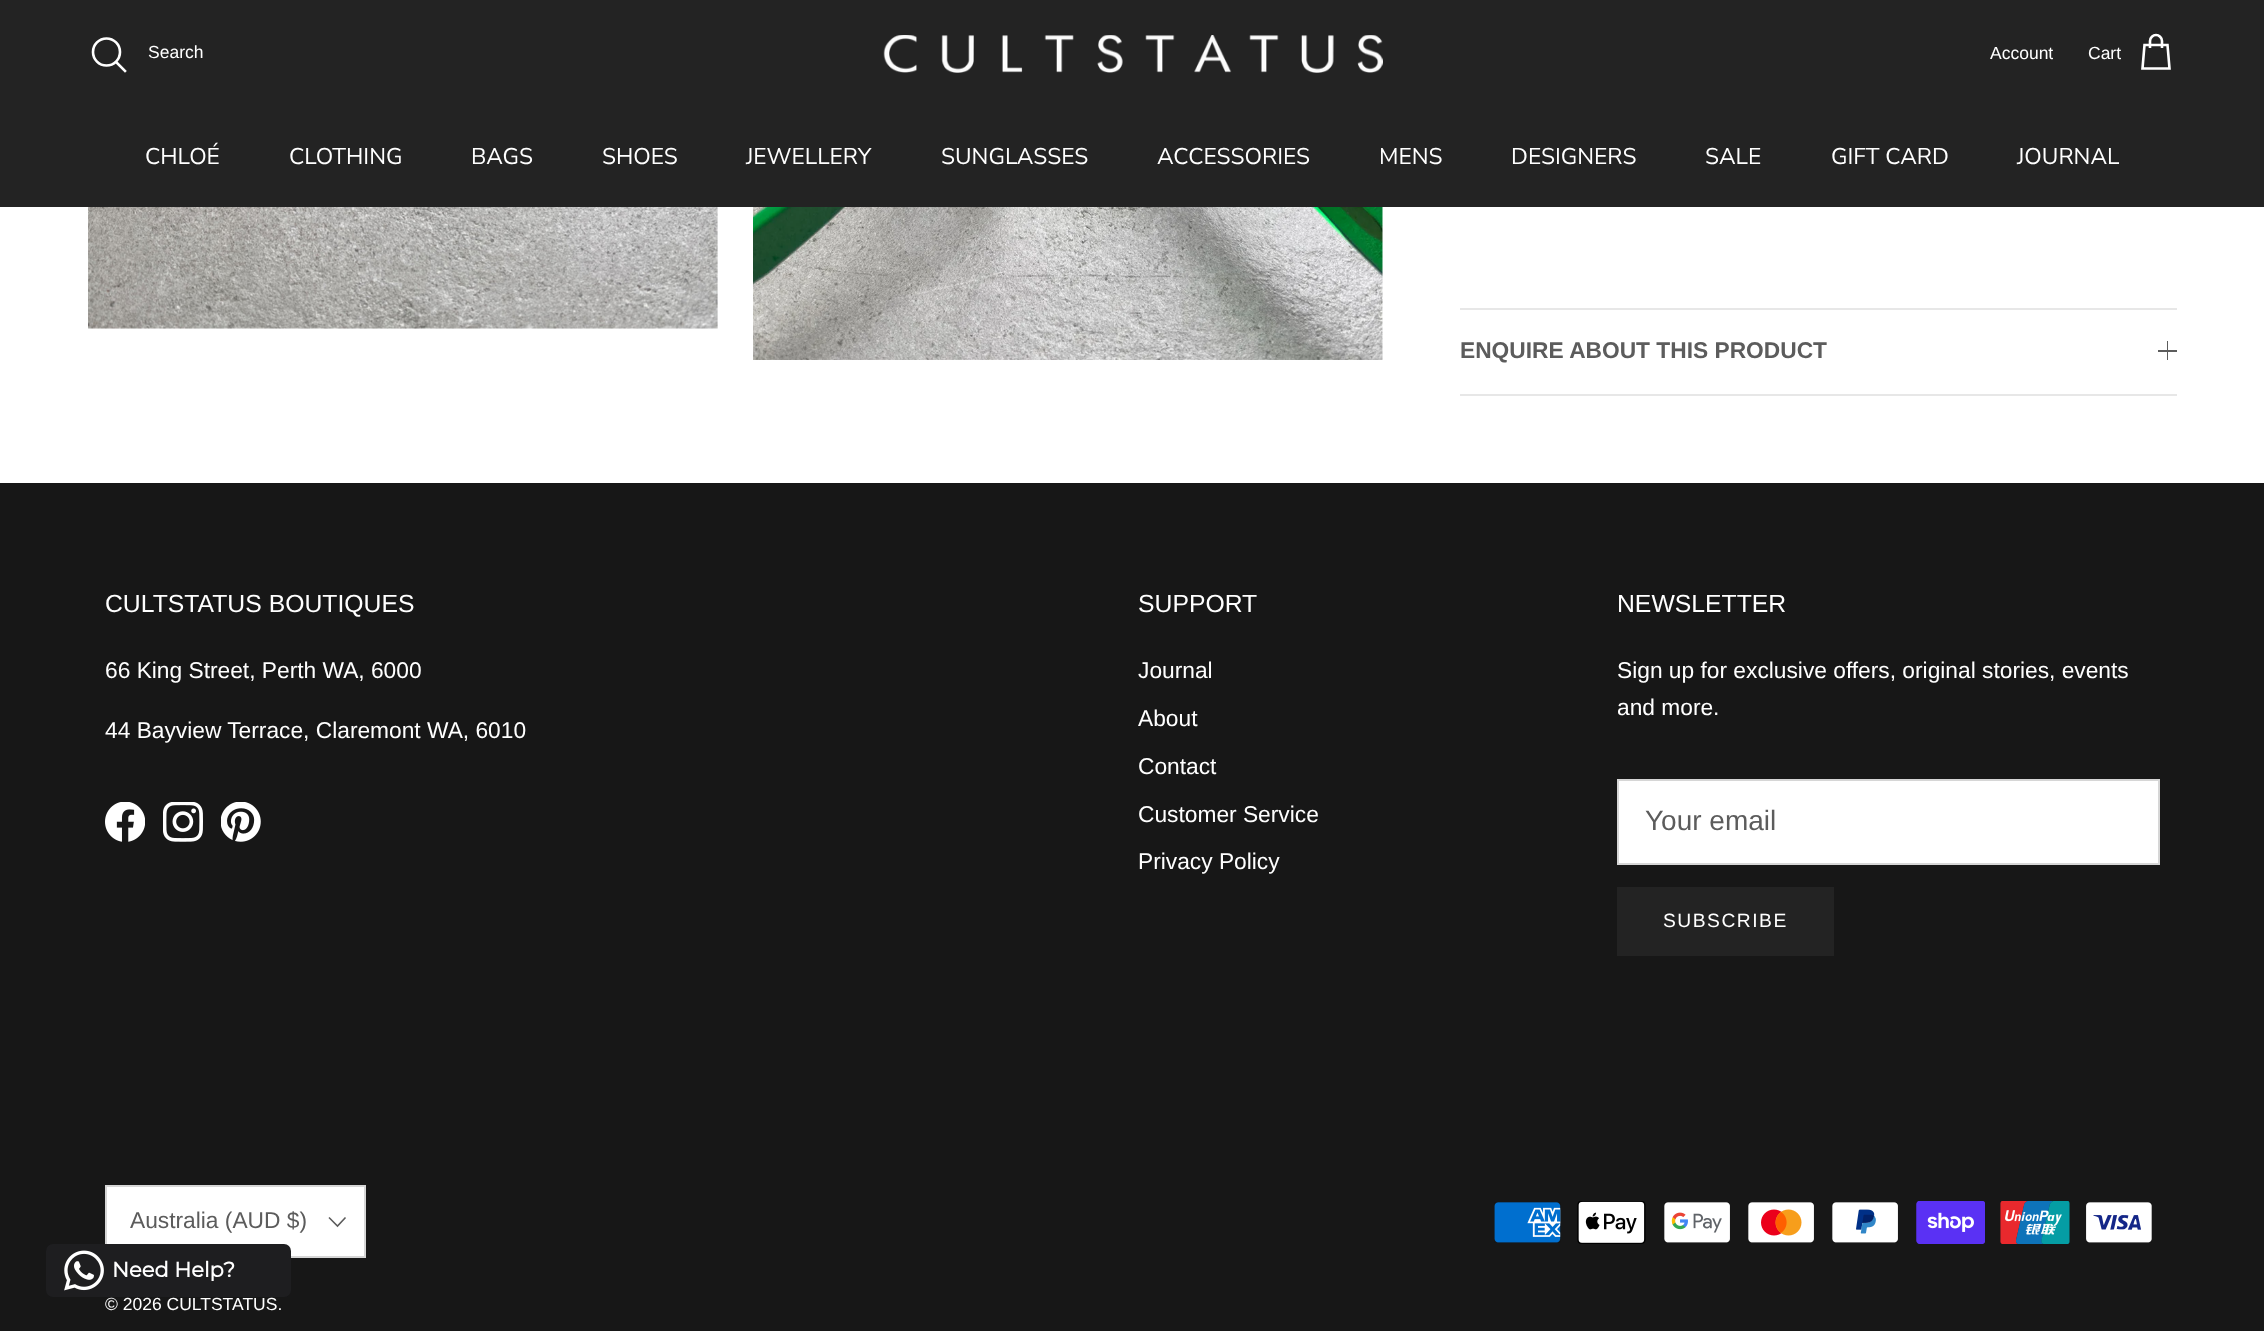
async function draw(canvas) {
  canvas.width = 2264
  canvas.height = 1331
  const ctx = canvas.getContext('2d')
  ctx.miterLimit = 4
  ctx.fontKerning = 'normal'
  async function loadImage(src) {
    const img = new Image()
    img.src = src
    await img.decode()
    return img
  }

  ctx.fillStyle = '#fff'
  ctx.fillRect(0, 0, 2264, 1331)
  ctx.fillStyle = '#232323'
  ctx.fillRect(0, 0, 2264, 207)
  ctx.beginPath()
  ctx.arc(106.5, 52, 13.5, 0, 2 * Math.PI)
  ctx.strokeStyle = '#fff'
  ctx.lineWidth = 2.6
  ctx.stroke()
  ctx.font = '17.5px Liberation Sans'
  ctx.fillStyle = '#fff'
  ctx.fillText('Search', 148, 58)
  ctx.beginPath()
  ctx.moveTo(117, 63)
  ctx.lineTo(125, 71)
  ctx.lineCap = 'square'
  ctx.stroke()
  ctx.drawImage(await loadImage('image0.png'), 883, 35, 500, 38)
  ctx.fillText('Account', 1990, 59)
  ctx.fillText('Cart', 2088, 59)
  ctx.beginPath()
  ctx.moveTo(2162, 48)
  ctx.lineTo(2162, 41)
  ctx.bezierCurveTo(2162, 37.5, 2159, 35, 2156, 35)
  ctx.bezierCurveTo(2153, 35, 2150, 37.5, 2150, 41)
  ctx.lineTo(2150, 48)
  ctx.moveTo(2144.5, 45)
  ctx.lineTo(2167.5, 45)
  ctx.lineTo(2169.5, 68.5)
  ctx.lineTo(2142.5, 68.5)
  ctx.closePath()
  ctx.lineCap = 'butt'
  ctx.stroke()
  ctx.font = '22.75px Nunito Sans'
  ctx.fillText('CHLOÉ', 145, 164)
  ctx.fillText('CLOTHING', 289, 164)
  ctx.fillText('BAGS', 471, 164)
  ctx.fillText('SHOES', 602, 164)
  ctx.fillText('JEWELLERY', 746, 164)
  ctx.fillText('SUNGLASSES', 941, 164)
  ctx.fillText('ACCESSORIES', 1157, 164)
  ctx.fillText('MENS', 1379, 164)
  ctx.fillText('DESIGNERS', 1511, 164)
  ctx.fillText('SALE', 1705, 164)
  ctx.fillText('GIFT CARD', 1831, 164)
  ctx.fillText('JOURNAL', 2017, 164)
  ctx.drawImage(await loadImage('image1.png'), 88, 207, 630, 122)
  ctx.drawImage(await loadImage('image2.png'), 753, 207, 630, 153)
  ctx.fillStyle = '#e7e7e7'
  ctx.fillRect(1460, 308, 717, 2)
  ctx.fillRect(1460, 394, 717, 2)
  ctx.font = 'bold 22.75px Liberation Sans'
  ctx.fillStyle = '#5c5c5c'
  ctx.fillText('ENQUIRE ABOUT THIS PRODUCT', 1460, 358)
  ctx.fillRect(2167, 341, 1, 19)
  ctx.fillRect(2158, 350, 19, 2)
  ctx.fillStyle = '#171717'
  ctx.fillRect(0, 483, 2264, 848)
  ctx.font = '24.75px Liberation Sans'
  ctx.fillStyle = '#fff'
  ctx.fillText('CULTSTATUS BOUTIQUES', 105, 612)
  ctx.font = '22.75px Liberation Sans'
  ctx.fillText('66 King Street, Perth WA, 6000', 105, 678)
  ctx.fillText('44 Bayview Terrace, Claremont WA, 6010', 105, 738)
  ctx.drawImage(await loadImage('image3.png'), 105, 802, 40, 40)
  ctx.drawImage(await loadImage('image4.png'), 163, 802, 40, 40)
  ctx.drawImage(await loadImage('image5.png'), 221, 802, 40, 40)
  ctx.font = '24.75px Liberation Sans'
  ctx.fillText('SUPPORT', 1138, 612)
  ctx.font = '22.75px Liberation Sans'
  ctx.fillText('Journal', 1138, 678)
  ctx.fillText('About', 1138, 726)
  ctx.fillText('Contact', 1138, 774)
  ctx.fillText('Customer Service', 1138, 822)
  ctx.fillText('Privacy Policy', 1138, 869)
  ctx.font = '24.75px Liberation Sans'
  ctx.fillText('NEWSLETTER', 1617, 612)
  ctx.font = '22.75px Liberation Sans'
  ctx.fillText('Sign up for exclusive offers, original stories, events', 1617, 678)
  ctx.fillText('and more.', 1617, 715)
  ctx.beginPath()
  ctx.rect(1618, 780, 541, 84)
  ctx.fill()
  ctx.strokeStyle = '#d6d6d6'
  ctx.lineWidth = 2
  ctx.stroke()
  ctx.font = '28px Liberation Sans'
  ctx.fillStyle = '#5c5c5c'
  ctx.fillText('Your email', 1645, 830)
  ctx.fillStyle = '#232323'
  ctx.fillRect(1617, 887, 217, 69)
  ctx.letterSpacing = '1.5px'
  ctx.font = '19.25px Liberation Sans'
  ctx.fillStyle = '#fff'
  ctx.fillText('SUBSCRIBE', 1663, 927)
  ctx.beginPath()
  ctx.rect(106, 1186, 259, 71)
  ctx.fill()
  ctx.stroke()
  ctx.letterSpacing = '0px'
  ctx.font = '22.75px Liberation Sans'
  ctx.fillStyle = '#5c5c5c'
  ctx.fillText('Australia (AUD $)', 130, 1228)
  ctx.beginPath()
  ctx.moveTo(345.5, 1217.5)
  ctx.lineTo(337.5, 1226)
  ctx.lineTo(329, 1217.5)
  ctx.strokeStyle = '#5c5c5c'
  ctx.lineWidth = 1.6
  ctx.stroke()
  ctx.font = '17.5px Liberation Sans'
  ctx.fillStyle = '#fff'
  ctx.fillText('© 2026 CULTSTATUS.', 105, 1310)
  ctx.drawImage(await loadImage('image6.png'), 1494, 1202, 67, 41)
  ctx.drawImage(await loadImage('image7.png'), 1577, 1201, 69, 43)
  ctx.drawImage(await loadImage('image8.png'), 1664, 1202, 66, 41)
  ctx.drawImage(await loadImage('image9.png'), 1748, 1202, 66, 41)
  ctx.drawImage(await loadImage('image10.png'), 1832, 1202, 66, 41)
  ctx.drawImage(await loadImage('image11.png'), 1916, 1201, 69, 43)
  ctx.drawImage(await loadImage('image12.png'), 2000, 1201, 70, 43)
  ctx.drawImage(await loadImage('image13.png'), 2086, 1202, 66, 41)
  ctx.fillStyle = '#1e1e20'
  ctx.beginPath()
  ctx.roundRect(46, 1244, 245, 53, 7)
  ctx.fill()
  ctx.drawImage(await loadImage('image14.png'), 64, 1250, 40, 41)
  ctx.font = 'bold 21px Montserrat'
  ctx.fillStyle = '#fff'
  ctx.fillText('Need Help?', 112, 1277)
}

draw(document.querySelector('canvas'))
